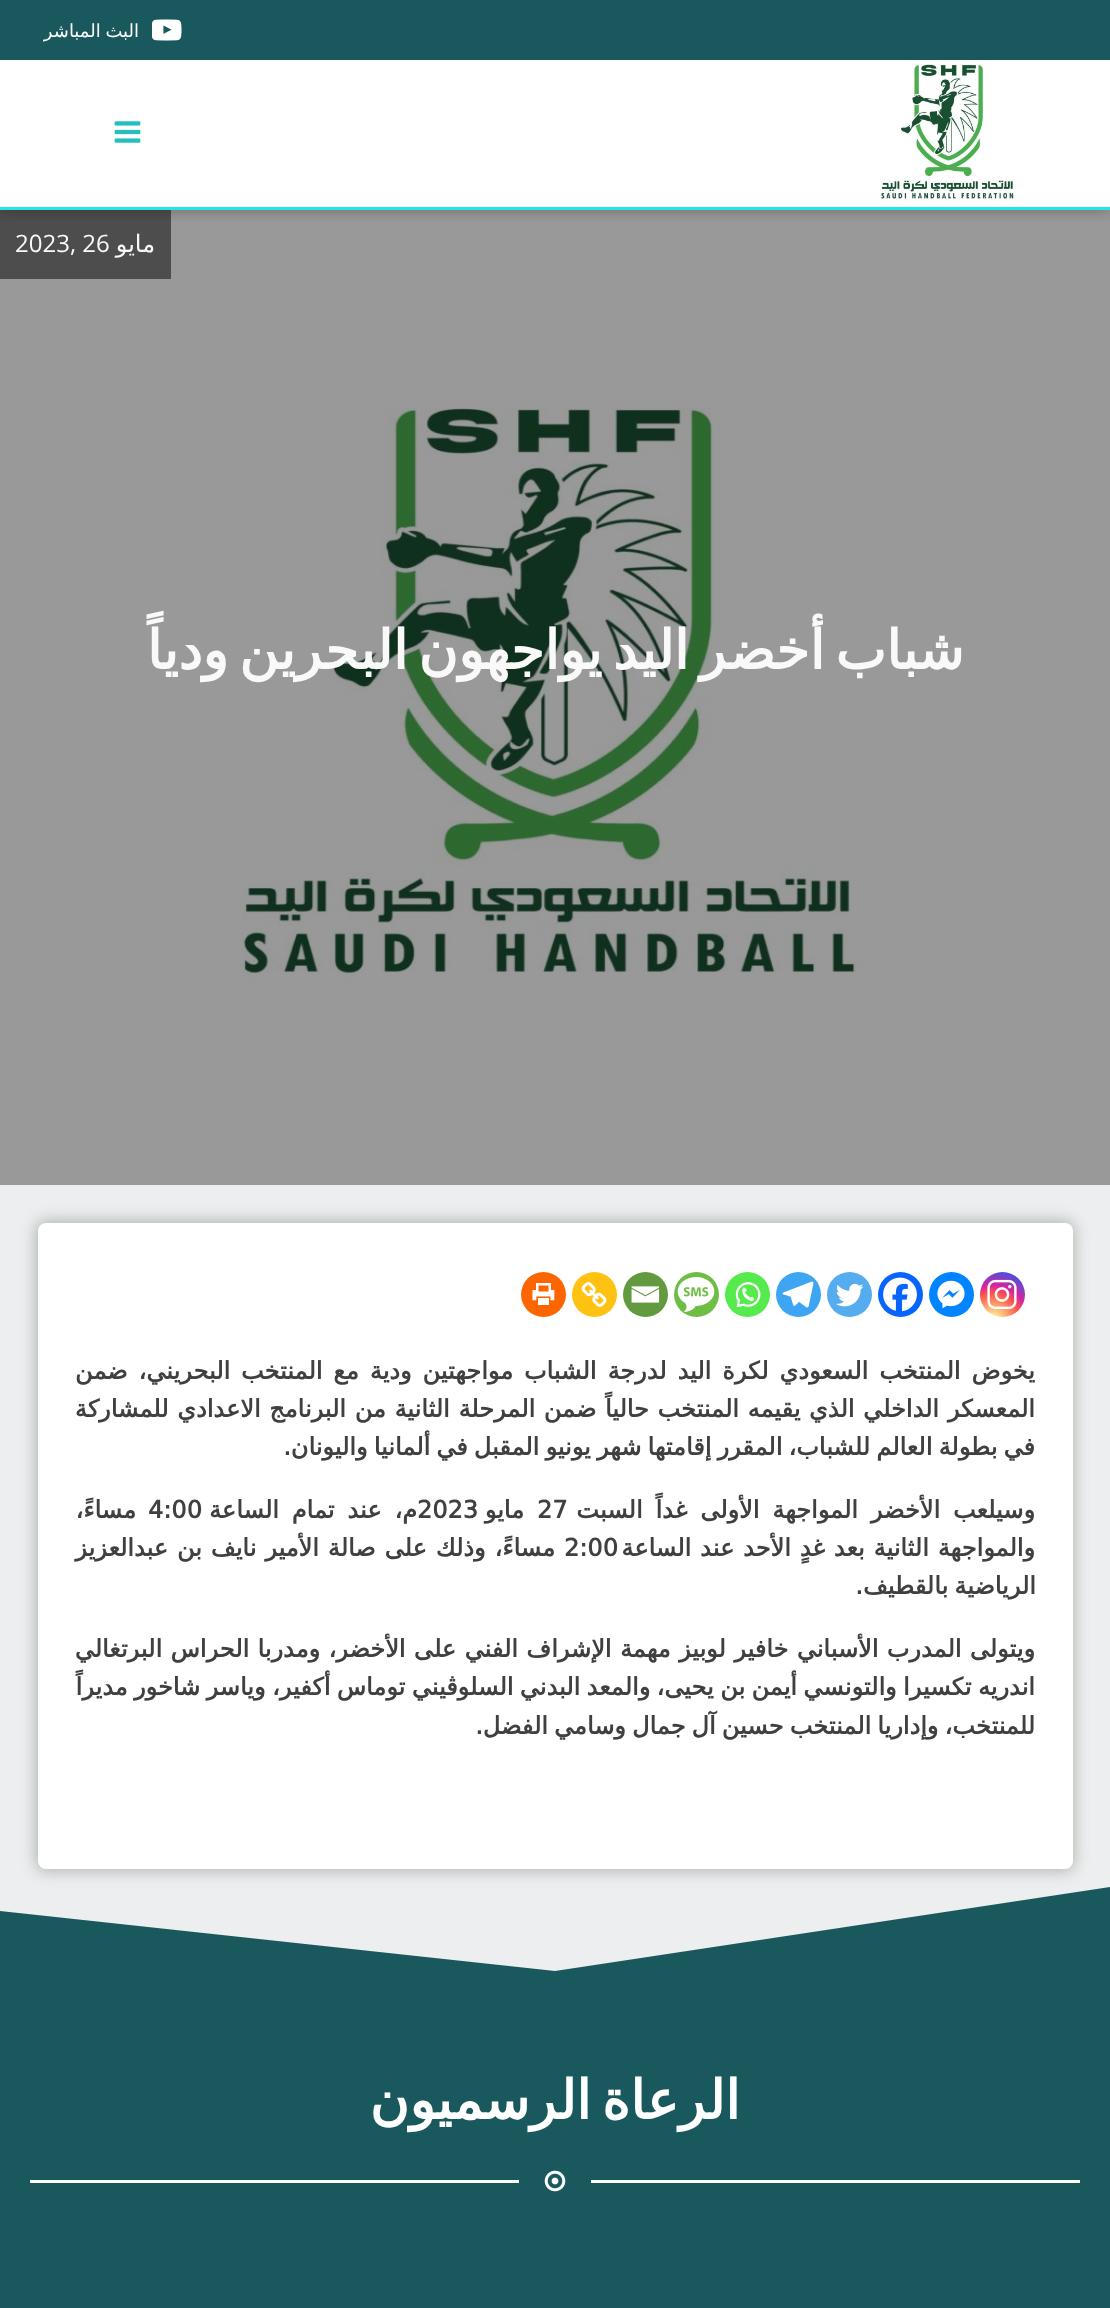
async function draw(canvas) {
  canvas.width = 1110
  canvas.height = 2308
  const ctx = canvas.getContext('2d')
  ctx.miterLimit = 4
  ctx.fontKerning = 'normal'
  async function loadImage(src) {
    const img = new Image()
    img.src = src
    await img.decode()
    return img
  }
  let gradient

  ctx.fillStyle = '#fff'
  ctx.fillRect(0, 0, 1110, 2308)
  ctx.drawImage(await loadImage('image3.png'), 0, 210, 1110, 975)
  ctx.fillStyle = '#4d4d4d'
  ctx.fillRect(0, 210, 171, 69)
  ctx.save()
  ctx.beginPath()
  ctx.rect(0, 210, 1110, 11)
  ctx.clip()
  ctx.fillStyle = '#0000004d'
  ctx.filter = 'blur(7.5px)'
  ctx.beginPath()
  ctx.rect(0, 0, 1110, 210)
  ctx.fill()
  ctx.filter = 'none'
  ctx.restore()
  ctx.fillStyle = '#19595d'
  ctx.fillRect(0, 0, 1110, 60)
  ctx.drawImage(await loadImage('image0.png'), 152, 19, 30, 22)
  ctx.wordSpacing = '-1px'
  ctx.direction = 'rtl'
  ctx.font = '18px DejaVu Sans'
  ctx.fillStyle = '#fff'
  ctx.fillText('البث المباشر', 139, 37)
  ctx.fillStyle = '#20e8e8'
  ctx.fillRect(0, 207, 1110, 3)
  ctx.drawImage(await loadImage('image1.png'), 881, 64, 133, 136)
  ctx.drawImage(await loadImage('image2.png'), 114, 121, 27, 22)
  ctx.wordSpacing = '0px'
  ctx.font = '24px DejaVu Sans'
  ctx.fillStyle = '#f9f9fa'
  ctx.fillText('مايو', 155, 252)
  ctx.direction = 'ltr'
  ctx.font = '24px Open Sans'
  ctx.fillText('2023, 26', 15, 252)
  ctx.wordSpacing = '-6.5px'
  ctx.direction = 'rtl'
  ctx.font = 'bold 54px DejaVu Sans'
  ctx.fillText('شباب أخضر اليد يواجهون البحرين ودياً', 964, 669)
  ctx.fillStyle = '#eceeef'
  ctx.fillRect(0, 1185, 1110, 722)
  ctx.fillStyle = '#aeb4ae'
  ctx.filter = 'blur(7.5px)'
  ctx.beginPath()
  ctx.roundRect(36, 1221, 1038, 650, 9)
  ctx.fill()
  ctx.filter = 'none'
  ctx.fillStyle = '#fff'
  ctx.beginPath()
  ctx.roundRect(38, 1223, 1035, 646, 8)
  ctx.fill()
  gradient = ctx.createRadialGradient(993, 1320, 0, 993, 1320, 58)
  gradient.addColorStop(0, '#fdf497')
  gradient.addColorStop(0.05, '#fdf497')
  gradient.addColorStop(0.45, '#fd5949')
  gradient.addColorStop(0.6, '#d6249f')
  gradient.addColorStop(0.9, '#285aeb')
  ctx.fillStyle = gradient
  ctx.beginPath()
  ctx.arc(1002.5, 1294.5, 22.5, 0, 2 * Math.PI)
  ctx.fill()
  ctx.drawImage(await loadImage('image4.png'), 987, 1279, 30, 31)
  ctx.fillStyle = '#0084ff'
  ctx.beginPath()
  ctx.arc(951.5, 1294.5, 22.5, 0, 2 * Math.PI)
  ctx.fill()
  ctx.drawImage(await loadImage('image5.png'), 937, 1280, 28, 29)
  ctx.fillStyle = '#0765fe'
  ctx.beginPath()
  ctx.arc(900.5, 1294.5, 22.5, 0, 2 * Math.PI)
  ctx.fill()
  ctx.drawImage(await loadImage('image6.png'), 883, 1277, 34, 35)
  ctx.fillStyle = '#55acee'
  ctx.beginPath()
  ctx.arc(849.5, 1294.5, 22.5, 0, 2 * Math.PI)
  ctx.fill()
  ctx.drawImage(await loadImage('image7.png'), 836, 1283, 28, 24)
  ctx.fillStyle = '#3da5f1'
  ctx.beginPath()
  ctx.arc(798.5, 1294.5, 22.5, 0, 2 * Math.PI)
  ctx.fill()
  ctx.drawImage(await loadImage('image8.png'), 782, 1281, 32, 27)
  ctx.fillStyle = '#55eb4c'
  ctx.beginPath()
  ctx.arc(747.5, 1294.5, 22.5, 0, 2 * Math.PI)
  ctx.fill()
  ctx.drawImage(await loadImage('image9.png'), 735, 1282, 26, 26)
  ctx.fillStyle = '#6ebe45'
  ctx.beginPath()
  ctx.arc(696.5, 1294.5, 22.5, 0, 2 * Math.PI)
  ctx.fill()
  ctx.drawImage(await loadImage('image10.png'), 677, 1277, 38, 35)
  ctx.fillStyle = '#649a3f'
  ctx.beginPath()
  ctx.arc(645.5, 1294.5, 22.5, 0, 2 * Math.PI)
  ctx.fill()
  ctx.drawImage(await loadImage('image11.png'), 631, 1286, 29, 17)
  ctx.fillStyle = '#ffc112'
  ctx.beginPath()
  ctx.arc(594.5, 1294.5, 22.5, 0, 2 * Math.PI)
  ctx.fill()
  ctx.drawImage(await loadImage('image12.png'), 581, 1282, 26, 25)
  ctx.fillStyle = '#fd6500'
  ctx.beginPath()
  ctx.arc(543.5, 1294.5, 22.5, 0, 2 * Math.PI)
  ctx.fill()
  ctx.drawImage(await loadImage('image13.png'), 532, 1283, 23, 22)
  ctx.wordSpacing = '3.25px'
  ctx.font = 'bold 24px DejaVu Sans'
  ctx.fillStyle = '#404040'
  ctx.fillText('يخوض المنتخب السعودي لكرة اليد لدرجة الشباب مواجهتين ودية مع المنتخب البحريني، ضمن', 1035, 1379)
  ctx.wordSpacing = '1px'
  ctx.fillText('المعسكر الداخلي الذي يقيمه المنتخب حالياً ضمن المرحلة الثانية من البرنامج الاعدادي للمشاركة', 1035, 1417)
  ctx.wordSpacing = '-1.5px'
  ctx.fillText('في بطولة العالم للشباب، المقرر إقامتها شهر يونيو المقبل في ألمانيا واليونان.', 1035, 1455)
  ctx.wordSpacing = '5.25px'
  ctx.fillText('وسيلعب الأخضر المواجهة الأولى غداً السبت', 1035, 1518)
  ctx.wordSpacing = '0px'
  ctx.direction = 'ltr'
  ctx.fillText('27', 537, 1518)
  ctx.direction = 'rtl'
  ctx.fillText('مايو', 524, 1518)
  ctx.direction = 'ltr'
  ctx.fillText('2023', 417, 1518)
  ctx.wordSpacing = '5.25px'
  ctx.direction = 'rtl'
  ctx.fillText('م، عند تمام الساعة', 417, 1518)
  ctx.wordSpacing = '0px'
  ctx.direction = 'ltr'
  ctx.fillText('4:00', 148, 1518)
  ctx.direction = 'rtl'
  ctx.fillText('مساءً،', 136, 1518)
  ctx.wordSpacing = '1.25px'
  ctx.fillText('والمواجهة الثانية بعد غدٍ الأحد عند الساعة', 1035, 1556)
  ctx.wordSpacing = '0px'
  ctx.direction = 'ltr'
  ctx.fillText('2:00', 564, 1556)
  ctx.wordSpacing = '1.25px'
  ctx.direction = 'rtl'
  ctx.fillText('مساءً، وذلك على صالة الأمير نايف بن عبدالعزيز', 555, 1556)
  ctx.wordSpacing = '-1.5px'
  ctx.fillText('الرياضية بالقطيف.', 1036, 1594)
  ctx.wordSpacing = '0.75px'
  ctx.fillText('ويتولى المدرب الأسباني خافير لوبيز مهمة الإشراف الفني على الأخضر، ومدربا الحراس البرتغالي', 1035, 1657)
  ctx.wordSpacing = '-1.25px'
  ctx.fillText('اندريه تكسيرا والتونسي أيمن بن يحيى، والمعد البدني السلوڤيني توماس أكفير، وياسر شاخور مديراً', 1035, 1695)
  ctx.wordSpacing = '-1.5px'
  ctx.fillText('للمنتخب، وإداريا المنتخب حسين آل جمال وسامي الفضل.', 1035, 1734)
  ctx.fillStyle = '#eceeef'
  ctx.fillRect(0, 1907, 978, 64)
  ctx.fillStyle = '#19595d'
  ctx.beginPath()
  ctx.moveTo(0, 1911)
  ctx.lineTo(555, 1971)
  ctx.lineTo(1110, 1887)
  ctx.lineTo(1110, 1983)
  ctx.lineTo(0, 1983)
  ctx.closePath()
  ctx.fill()
  ctx.fillRect(0, 1983, 1110, 325)
  ctx.wordSpacing = '-6.5px'
  ctx.font = 'bold 54px DejaVu Sans'
  ctx.fillStyle = '#fff'
  ctx.fillText('الرعاة الرسميون', 740, 2119)
  ctx.fillRect(591, 2180, 489, 3)
  ctx.drawImage(await loadImage('image14.png'), 544, 2170, 22, 22)
  ctx.fillRect(30, 2180, 489, 3)
}

draw(document.querySelector('canvas'))
